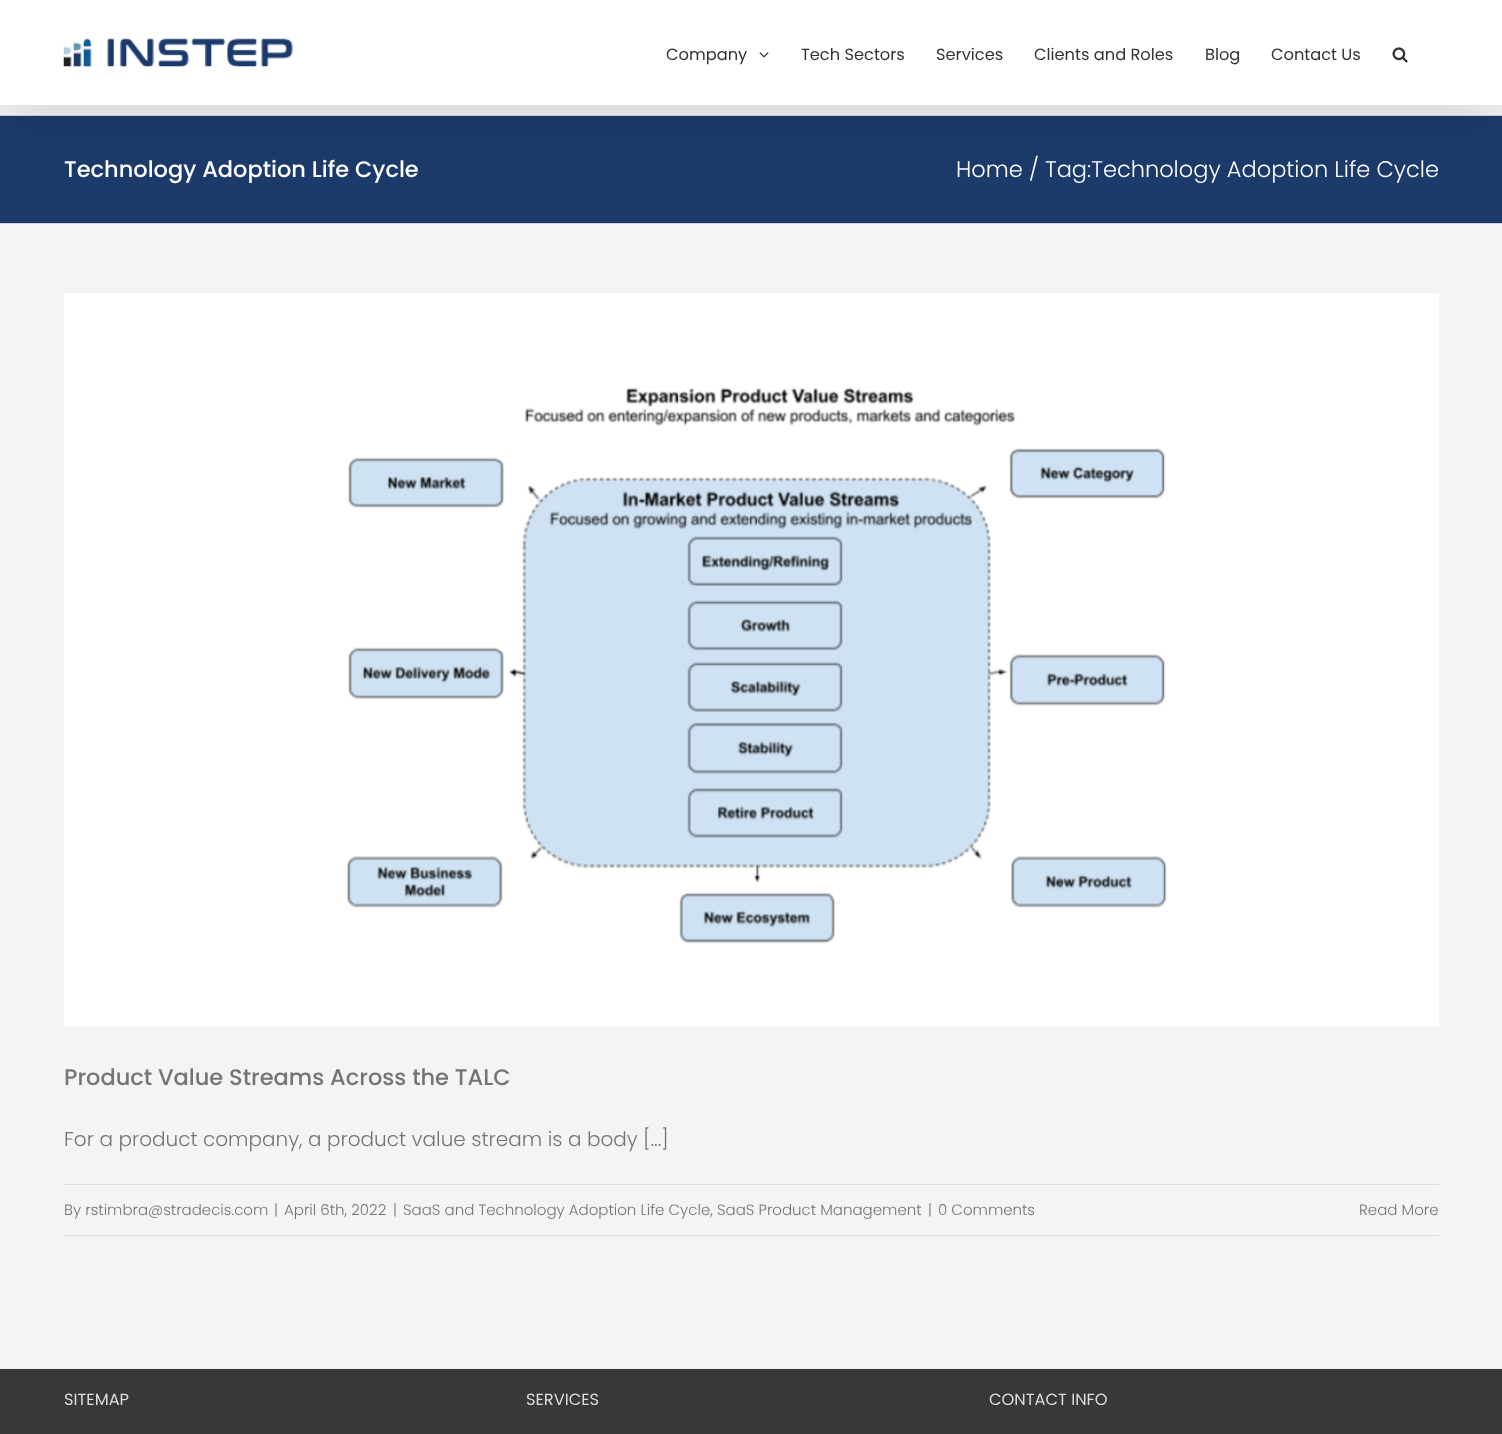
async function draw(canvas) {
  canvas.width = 1502
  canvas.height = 1434
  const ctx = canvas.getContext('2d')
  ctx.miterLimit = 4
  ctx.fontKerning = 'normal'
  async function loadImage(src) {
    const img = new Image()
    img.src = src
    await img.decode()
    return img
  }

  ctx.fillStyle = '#f4f4f4'
  ctx.fillRect(0, 0, 1502, 1434)
  ctx.fillStyle = '#1c3b6b'
  ctx.fillRect(0, 116, 1502, 107)
  ctx.fillStyle = '#d2d3d4'
  ctx.fillRect(0, 115, 1502, 1)
  ctx.fillStyle = '#00000024'
  ctx.filter = 'blur(31px)'
  ctx.beginPath()
  ctx.rect(3, 15, 1497, 100)
  ctx.fill()
  ctx.filter = 'none'
  ctx.fillStyle = '#fff'
  ctx.fillRect(0, 0, 1502, 105)
  ctx.drawImage(await loadImage('image0.png'), 63, 38, 230, 29)
  ctx.font = '16.25px Poppins'
  ctx.fillStyle = '#333'
  ctx.fillText('Company', 666, 60)
  ctx.drawImage(await loadImage('image1.png'), 759, 52, 10, 6)
  ctx.fillText('Tech Sectors', 801, 60)
  ctx.fillText('Services', 936, 60)
  ctx.fillText('Clients and Roles', 1034, 60)
  ctx.fillText('Blog', 1205, 60)
  ctx.fillText('Contact Us', 1271, 60)
  ctx.drawImage(await loadImage('image2.png'), 1392, 47, 16, 16)
  ctx.fillStyle = '#d2d3d4'
  ctx.fillRect(0, 223, 1502, 1)
  ctx.font = '500 22.5px Poppins'
  ctx.fillStyle = '#fff'
  ctx.fillText('Technology Adoption Life Cycle', 64, 177)
  ctx.font = '300 22.5px Poppins'
  ctx.fillText('Home / Tag:Technology Adoption Life Cycle', 956, 177)
  ctx.drawImage(await loadImage('image3.png'), 64, 293, 1375, 734)
  ctx.font = '500 22.5px Poppins'
  ctx.fillStyle = '#747474'
  ctx.fillText('Product Value Streams Across the TALC', 64, 1085)
  ctx.font = '300 20px Poppins'
  ctx.fillText('For a product company, a product value stream is a body [...]', 64, 1146)
  ctx.fillStyle = '#e0dede'
  ctx.fillRect(64, 1184, 1375, 1)
  ctx.fillRect(64, 1235, 1375, 1)
  ctx.font = '300 15px Poppins'
  ctx.fillStyle = '#747474'
  ctx.fillText('By rstimbra@stradecis.com', 64, 1215)
  ctx.fillText('|', 274, 1215)
  ctx.fillText('April 6th, 2022', 284, 1215)
  ctx.fillText('|', 393, 1215)
  ctx.fillText('SaaS and Technology Adoption Life Cycle, SaaS Product Management', 403, 1215)
  ctx.fillText('|', 928, 1215)
  ctx.fillText('0 Comments', 938, 1215)
  ctx.fillText('Read More', 1359, 1215)
  ctx.fillStyle = '#363839'
  ctx.fillRect(0, 1369, 1502, 65)
  ctx.fillStyle = '#e9eaee'
  ctx.fillRect(0, 1368, 1502, 1)
  ctx.font = '16.25px Poppins'
  ctx.fillStyle = '#ddd'
  ctx.fillText('SITEMAP', 64, 1405)
  ctx.fillText('SERVICES', 526, 1405)
  ctx.fillText('CONTACT INFO', 989, 1405)
}

draw(document.querySelector('canvas'))
